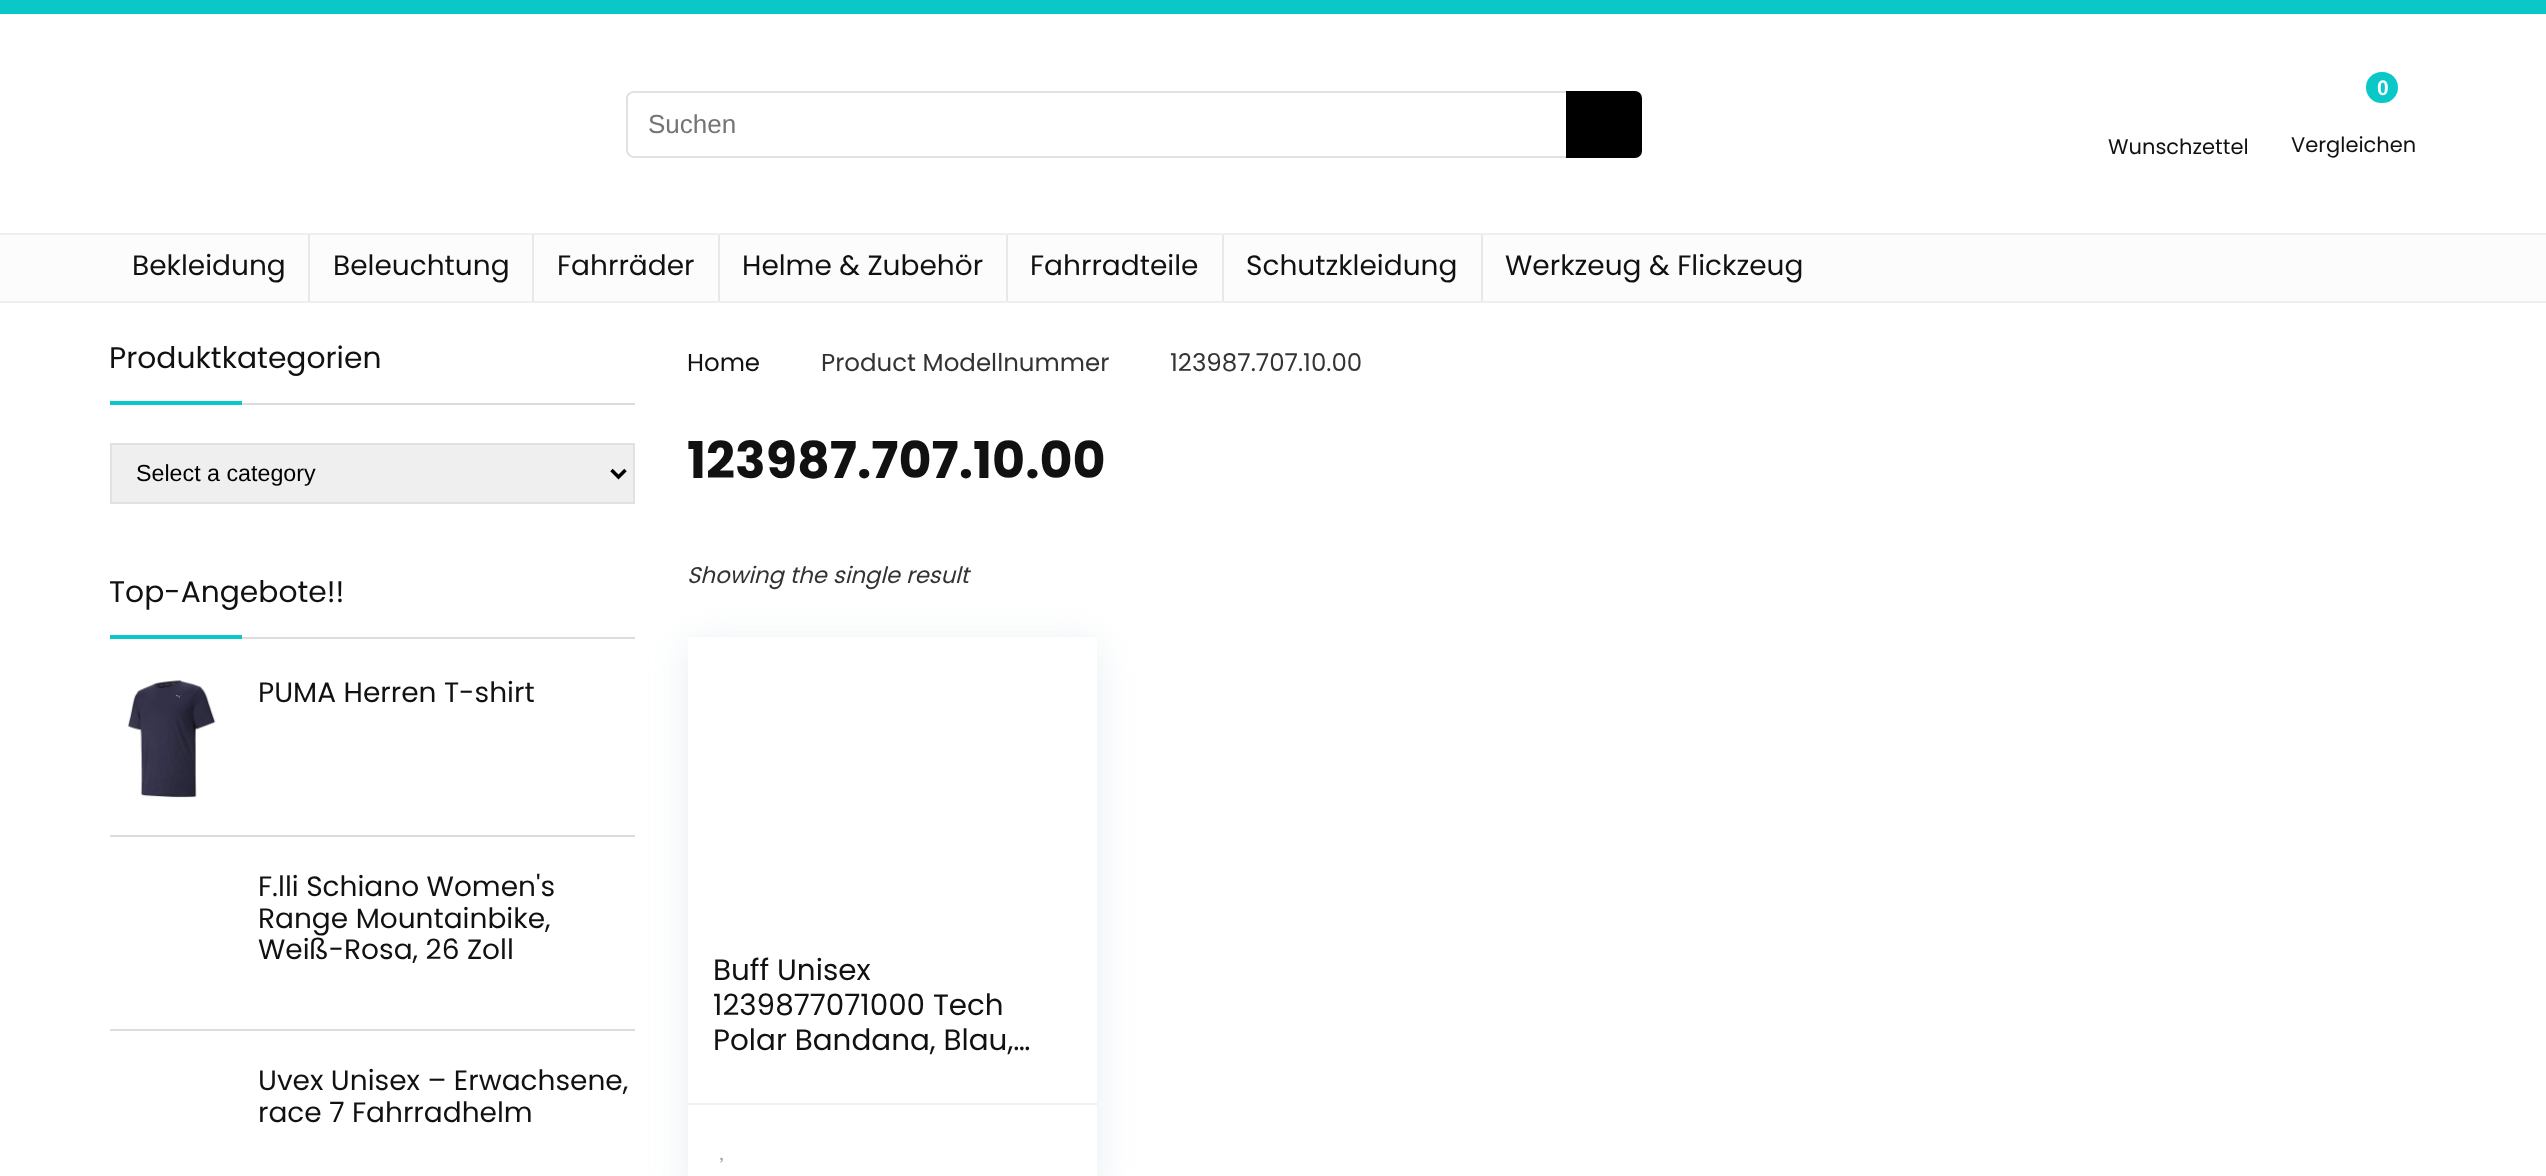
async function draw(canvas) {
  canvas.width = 2546
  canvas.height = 1176
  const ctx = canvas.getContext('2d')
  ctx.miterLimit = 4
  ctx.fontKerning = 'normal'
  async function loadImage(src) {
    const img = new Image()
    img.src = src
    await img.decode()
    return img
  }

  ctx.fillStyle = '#fff'
  ctx.fillRect(0, 0, 2546, 1176)
  ctx.fillStyle = '#0ac8c7'
  ctx.fillRect(0, 0, 2546, 14)
  ctx.fillStyle = '#e1e1e1'
  ctx.beginPath()
  ctx.moveTo(634, 91)
  ctx.lineTo(1566, 91)
  ctx.lineTo(1566, 158)
  ctx.lineTo(634, 158)
  ctx.bezierCurveTo(630, 158, 626, 154, 626, 150)
  ctx.lineTo(626, 98)
  ctx.bezierCurveTo(626, 94, 630, 91, 634, 91)
  ctx.closePath()
  ctx.moveTo(634, 93)
  ctx.lineTo(1566, 93)
  ctx.lineTo(1566, 156)
  ctx.lineTo(634, 156)
  ctx.bezierCurveTo(631, 156, 628, 153, 628, 150)
  ctx.lineTo(628, 98)
  ctx.bezierCurveTo(628, 95, 631, 93, 634, 93)
  ctx.closePath()
  ctx.fill('evenodd')
  ctx.font = '26px Liberation Sans'
  ctx.fillStyle = '#757575'
  ctx.fillText('Suchen', 648, 133)
  ctx.fillStyle = '#000'
  ctx.beginPath()
  ctx.roundRect(1566, 91, 76, 67, [0, 7, 7, 0])
  ctx.fill()
  ctx.font = '21px Poppins'
  ctx.fillStyle = '#111'
  ctx.fillText('Wunschzettel', 2108, 154)
  ctx.fillStyle = '#0ac8c7'
  ctx.beginPath()
  ctx.roundRect(2366, 72, 32, 31, 15.5)
  ctx.fill()
  ctx.font = 'bold 21px Liberation Sans'
  ctx.fillStyle = '#fff'
  ctx.fillText('0', 2377, 95)
  ctx.font = '21px Poppins'
  ctx.fillStyle = '#111'
  ctx.fillText('Vergleichen', 2291, 152)
  ctx.fillStyle = '#fcfcfc'
  ctx.fillRect(0, 235, 2546, 66)
  ctx.fillStyle = '#eee'
  ctx.fillRect(0, 233, 2546, 2)
  ctx.fillRect(0, 301, 2546, 2)
  ctx.fillStyle = '#e8e8e8'
  ctx.fillRect(308, 235, 2, 66)
  ctx.font = '28px Poppins'
  ctx.fillStyle = '#111'
  ctx.fillText('Bekleidung', 132, 275)
  ctx.fillStyle = '#e8e8e8'
  ctx.fillRect(532, 235, 2, 66)
  ctx.fillStyle = '#111'
  ctx.fillText('Beleuchtung', 333, 275)
  ctx.fillStyle = '#e8e8e8'
  ctx.fillRect(718, 235, 2, 66)
  ctx.fillStyle = '#111'
  ctx.fillText('Fahrräder', 557, 275)
  ctx.fillStyle = '#e8e8e8'
  ctx.fillRect(1006, 235, 2, 66)
  ctx.fillStyle = '#111'
  ctx.fillText('Helme & Zubehör', 742, 275)
  ctx.fillStyle = '#e8e8e8'
  ctx.fillRect(1222, 235, 2, 66)
  ctx.fillStyle = '#111'
  ctx.fillText('Fahrradteile', 1030, 275)
  ctx.fillStyle = '#e8e8e8'
  ctx.fillRect(1481, 235, 2, 66)
  ctx.fillStyle = '#111'
  ctx.fillText('Schutzkleidung', 1246, 275)
  ctx.fillText('Werkzeug & Flickzeug', 1505, 275)
  ctx.fillStyle = '#ddd'
  ctx.fillRect(242, 403, 393, 2)
  ctx.font = '29.75px Poppins'
  ctx.fillStyle = '#111'
  ctx.fillText('Produktkategorien', 109, 368)
  ctx.fillStyle = '#0ac8c7'
  ctx.fillRect(110, 401, 132, 4)
  ctx.fillStyle = '#efefef'
  ctx.beginPath()
  ctx.rect(111, 444, 523, 59)
  ctx.fill()
  ctx.strokeStyle = '#e1e1e1'
  ctx.lineWidth = 2
  ctx.stroke()
  ctx.beginPath()
  ctx.moveTo(611.5, 470)
  ctx.lineTo(618.5, 477)
  ctx.lineTo(625.5, 470)
  ctx.strokeStyle = '#000'
  ctx.lineWidth = 3.5
  ctx.stroke()
  ctx.font = '23.25px Liberation Sans'
  ctx.fillStyle = '#000'
  ctx.fillText('Select a category', 136, 481)
  ctx.fillStyle = '#ddd'
  ctx.fillRect(242, 637, 393, 2)
  ctx.font = '29.75px Poppins'
  ctx.fillStyle = '#111'
  ctx.fillText('Top-Angebote!!', 109, 602)
  ctx.fillStyle = '#0ac8c7'
  ctx.fillRect(110, 635, 132, 4)
  ctx.fillStyle = '#ddd'
  ctx.fillRect(110, 835, 525, 2)
  ctx.drawImage(await loadImage('image0.png'), 127, 680, 89, 119)
  ctx.font = '28px Poppins'
  ctx.fillStyle = '#111'
  ctx.fillText('PUMA Herren T-shirt', 258, 702)
  ctx.fillStyle = '#ddd'
  ctx.fillRect(110, 1029, 525, 2)
  ctx.fillStyle = '#111'
  ctx.fillText('F.lli Schiano Women\'s', 258, 896)
  ctx.fillText('Range Mountainbike,', 258, 928)
  ctx.fillText('Weiß-Rosa, 26 Zoll', 258, 959)
  ctx.fillText('Uvex Unisex – Erwachsene,', 258, 1090)
  ctx.fillText('race 7 Fahrradhelm', 258, 1122)
  ctx.font = '24.5px Poppins'
  ctx.fillText('Home', 687, 371)
  ctx.fillStyle = '#333'
  ctx.fillText('Product Modellnummer', 821, 371)
  ctx.fillText('123987.707.10.00', 1170, 371)
  ctx.font = 'bold 50.75px Poppins'
  ctx.fillStyle = '#111'
  ctx.fillText('123987.707.10.00', 687, 478)
  ctx.font = 'italic 22.75px Poppins'
  ctx.fillStyle = '#333'
  ctx.fillText('Showing the single result', 687, 583)
  ctx.fillStyle = '#bccfdb59'
  ctx.filter = 'blur(20px)'
  ctx.beginPath()
  ctx.rect(688, 644, 409, 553)
  ctx.fill()
  ctx.filter = 'none'
  ctx.fillStyle = '#fff'
  ctx.fillRect(688, 637, 409, 539)
  ctx.fillStyle = '#f8f8f8'
  ctx.fillRect(688, 635, 409, 2)
  ctx.font = '29.4px Poppins'
  ctx.fillStyle = '#111'
  ctx.fillText('Buff Unisex', 713, 980)
  ctx.fillText('1239877071000 Tech', 713, 1015)
  ctx.fillText('Polar Bandana, Blau,…', 713, 1050)
  ctx.fillStyle = '#f0f0f0'
  ctx.fillRect(688, 1103, 409, 2)
  ctx.drawImage(await loadImage('image1.png'), 720, 1157, 3, 6)
}

draw(document.querySelector('canvas'))
